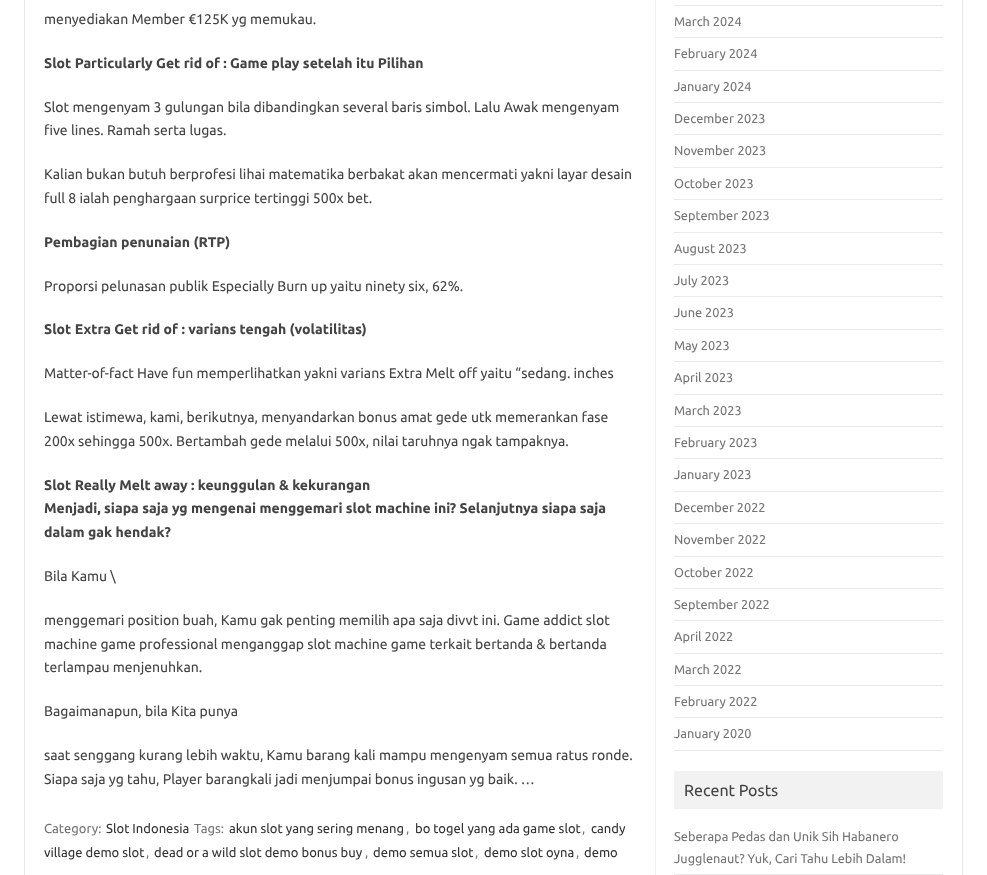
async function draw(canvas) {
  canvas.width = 987
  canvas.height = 875
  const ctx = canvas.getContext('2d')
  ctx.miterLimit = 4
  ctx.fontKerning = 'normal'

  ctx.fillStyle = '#fff'
  ctx.fillRect(0, 0, 987, 875)
  ctx.strokeStyle = '#e9e9e9'
  ctx.strokeRect(24.5, -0.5, 938, 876)
  ctx.fillStyle = '#f1f1f1'
  ctx.fillRect(655, 0, 1, 875)
  ctx.font = '14px Ubuntu'
  ctx.fillStyle = '#444'
  ctx.fillText('menyediakan Member €125K yg memukau.', 44, 24)
  ctx.font = 'bold 14px Ubuntu'
  ctx.fillText('Slot Particularly Get rid of : Game play setelah itu Pilihan', 44, 68)
  ctx.font = '14px Ubuntu'
  ctx.fillText('Slot mengenyam 3 gulungan bila dibandingkan several baris simbol. Lalu Awak mengenyam', 44, 112)
  ctx.fillText('five lines. Ramah serta lugas.', 44, 135)
  ctx.fillText('Kalian bukan butuh berprofesi lihai matematika berbakat akan mencermati yakni layar desain', 44, 179)
  ctx.fillText('full 8 ialah penghargaan surprice tertinggi 500x bet.', 44, 203)
  ctx.font = 'bold 14px Ubuntu'
  ctx.fillText('Pembagian penunaian (RTP)', 44, 247)
  ctx.font = '14px Ubuntu'
  ctx.fillText('Proporsi pelunasan publik Especially Burn up yaitu ninety six, 62%.', 44, 291)
  ctx.font = 'bold 14px Ubuntu'
  ctx.fillText('Slot Extra Get rid of : varians tengah (volatilitas)', 44, 334)
  ctx.font = '14px Ubuntu'
  ctx.fillText('Matter-of-fact Have fun memperlihatkan yakni varians Extra Melt off yaitu “sedang. inches', 44, 378)
  ctx.fillText('Lewat istimewa, kami, berikutnya, menyandarkan bonus amat gede utk memerankan fase', 44, 422)
  ctx.fillText('200x sehingga 500x. Bertambah gede melalui 500x, nilai taruhnya ngak tampaknya.', 44, 446)
  ctx.font = 'bold 14px Ubuntu'
  ctx.fillText('Slot Really Melt away : keunggulan & kekurangan', 44, 490)
  ctx.fillText('Menjadi, siapa saja yg mengenai menggemari slot machine ini? Selanjutnya siapa saja', 44, 513)
  ctx.fillText('dalam gak hendak?', 44, 537)
  ctx.font = '14px Ubuntu'
  ctx.fillText('Bila Kamu \\', 44, 581)
  ctx.fillText('menggemari position buah, Kamu gak penting memilih apa saja divvt ini. Game addict slot', 44, 625)
  ctx.fillText('machine game professional menganggap slot machine game terkait bertanda & bertanda', 44, 649)
  ctx.fillText('terlampau menjenuhkan.', 44, 672)
  ctx.fillText('Bagaimanapun, bila Kita punya', 44, 716)
  ctx.fillText('saat senggang kurang lebih waktu, Kamu barang kali mampu mengenyam semua ratus ronde.', 44, 760)
  ctx.fillText('Siapa saja yg tahu, Player barangkali jadi menjumpai bonus ingusan yg baik. …', 44, 784)
  ctx.font = '13px Ubuntu'
  ctx.fillStyle = '#757575'
  ctx.fillText('Category:', 44, 833)
  ctx.fillStyle = '#333'
  ctx.fillText('Slot Indonesia', 106, 833)
  ctx.fillStyle = '#757575'
  ctx.fillText('Tags:', 194, 833)
  ctx.fillStyle = '#333'
  ctx.fillText('akun slot yang sering menang', 229, 833)
  ctx.fillStyle = '#757575'
  ctx.fillText(',', 406, 833)
  ctx.fillStyle = '#333'
  ctx.fillText('bo togel yang ada game slot', 415, 833)
  ctx.fillStyle = '#757575'
  ctx.fillText(',', 582, 833)
  ctx.fillStyle = '#333'
  ctx.fillText('candy', 591, 833)
  ctx.fillText('village demo slot', 44, 857)
  ctx.fillStyle = '#757575'
  ctx.fillText(',', 146, 857)
  ctx.fillStyle = '#333'
  ctx.fillText('dead or a wild slot demo bonus buy', 154, 857)
  ctx.fillStyle = '#757575'
  ctx.fillText(',', 365, 857)
  ctx.fillStyle = '#333'
  ctx.fillText('demo semua slot', 373, 857)
  ctx.fillStyle = '#757575'
  ctx.fillText(',', 475, 857)
  ctx.fillStyle = '#333'
  ctx.fillText('demo slot oyna', 484, 857)
  ctx.fillStyle = '#757575'
  ctx.fillText(',', 576, 857)
  ctx.fillStyle = '#333'
  ctx.fillText('demo', 584, 857)
  ctx.fillStyle = '#e9e9e9'
  ctx.fillRect(674, 5, 269, 1)
  ctx.fillRect(674, 37, 269, 1)
  ctx.font = '12.75px Ubuntu'
  ctx.fillStyle = '#757575'
  ctx.fillText('March 2024', 674, 26)
  ctx.fillStyle = '#e9e9e9'
  ctx.fillRect(674, 70, 269, 1)
  ctx.fillStyle = '#757575'
  ctx.fillText('February 2024', 674, 58)
  ctx.fillStyle = '#e9e9e9'
  ctx.fillRect(674, 102, 269, 1)
  ctx.fillStyle = '#757575'
  ctx.fillText('January 2024', 674, 91)
  ctx.fillStyle = '#e9e9e9'
  ctx.fillRect(674, 134, 269, 1)
  ctx.fillStyle = '#757575'
  ctx.fillText('December 2023', 674, 123)
  ctx.fillStyle = '#e9e9e9'
  ctx.fillRect(674, 167, 269, 1)
  ctx.fillStyle = '#757575'
  ctx.fillText('November 2023', 674, 155)
  ctx.fillStyle = '#e9e9e9'
  ctx.fillRect(674, 199, 269, 1)
  ctx.fillStyle = '#757575'
  ctx.fillText('October 2023', 674, 188)
  ctx.fillStyle = '#e9e9e9'
  ctx.fillRect(674, 232, 269, 1)
  ctx.fillStyle = '#757575'
  ctx.fillText('September 2023', 674, 220)
  ctx.fillStyle = '#e9e9e9'
  ctx.fillRect(674, 264, 269, 1)
  ctx.fillStyle = '#757575'
  ctx.fillText('August 2023', 674, 253)
  ctx.fillStyle = '#e9e9e9'
  ctx.fillRect(674, 296, 269, 1)
  ctx.fillStyle = '#757575'
  ctx.fillText('July 2023', 674, 285)
  ctx.fillStyle = '#e9e9e9'
  ctx.fillRect(674, 329, 269, 1)
  ctx.fillStyle = '#757575'
  ctx.fillText('June 2023', 674, 317)
  ctx.fillStyle = '#e9e9e9'
  ctx.fillRect(674, 361, 269, 1)
  ctx.fillStyle = '#757575'
  ctx.fillText('May 2023', 674, 350)
  ctx.fillStyle = '#e9e9e9'
  ctx.fillRect(674, 394, 269, 1)
  ctx.fillStyle = '#757575'
  ctx.fillText('April 2023', 674, 382)
  ctx.fillStyle = '#e9e9e9'
  ctx.fillRect(674, 426, 269, 1)
  ctx.fillStyle = '#757575'
  ctx.fillText('March 2023', 674, 415)
  ctx.fillStyle = '#e9e9e9'
  ctx.fillRect(674, 458, 269, 1)
  ctx.fillStyle = '#757575'
  ctx.fillText('February 2023', 674, 447)
  ctx.fillStyle = '#e9e9e9'
  ctx.fillRect(674, 491, 269, 1)
  ctx.fillStyle = '#757575'
  ctx.fillText('January 2023', 674, 479)
  ctx.fillStyle = '#e9e9e9'
  ctx.fillRect(674, 523, 269, 1)
  ctx.fillStyle = '#757575'
  ctx.fillText('December 2022', 674, 512)
  ctx.fillStyle = '#e9e9e9'
  ctx.fillRect(674, 556, 269, 1)
  ctx.fillStyle = '#757575'
  ctx.fillText('November 2022', 674, 544)
  ctx.fillStyle = '#e9e9e9'
  ctx.fillRect(674, 588, 269, 1)
  ctx.fillStyle = '#757575'
  ctx.fillText('October 2022', 674, 577)
  ctx.fillStyle = '#e9e9e9'
  ctx.fillRect(674, 620, 269, 1)
  ctx.fillStyle = '#757575'
  ctx.fillText('September 2022', 674, 609)
  ctx.fillStyle = '#e9e9e9'
  ctx.fillRect(674, 653, 269, 1)
  ctx.fillStyle = '#757575'
  ctx.fillText('April 2022', 674, 641)
  ctx.fillStyle = '#e9e9e9'
  ctx.fillRect(674, 685, 269, 1)
  ctx.fillStyle = '#757575'
  ctx.fillText('March 2022', 674, 674)
  ctx.fillStyle = '#e9e9e9'
  ctx.fillRect(674, 717, 269, 1)
  ctx.fillStyle = '#757575'
  ctx.fillText('February 2022', 674, 706)
  ctx.fillStyle = '#e9e9e9'
  ctx.fillRect(674, 750, 269, 1)
  ctx.fillStyle = '#757575'
  ctx.fillText('January 2020', 674, 738)
  ctx.fillStyle = '#f2f2f2'
  ctx.fillRect(674, 771, 269, 38)
  ctx.font = '16px Ubuntu'
  ctx.fillStyle = '#444'
  ctx.fillText('Recent Posts', 684, 796)
  ctx.fillStyle = '#e9e9e9'
  ctx.fillRect(674, 874, 269, 1)
  ctx.font = '12.75px Ubuntu'
  ctx.fillStyle = '#757575'
  ctx.fillText('Seberapa Pedas dan Unik Sih Habanero', 674, 841)
  ctx.fillText('Jugglenaut? Yuk, Cari Tahu Lebih Dalam!', 674, 863)
}

draw(document.querySelector('canvas'))
